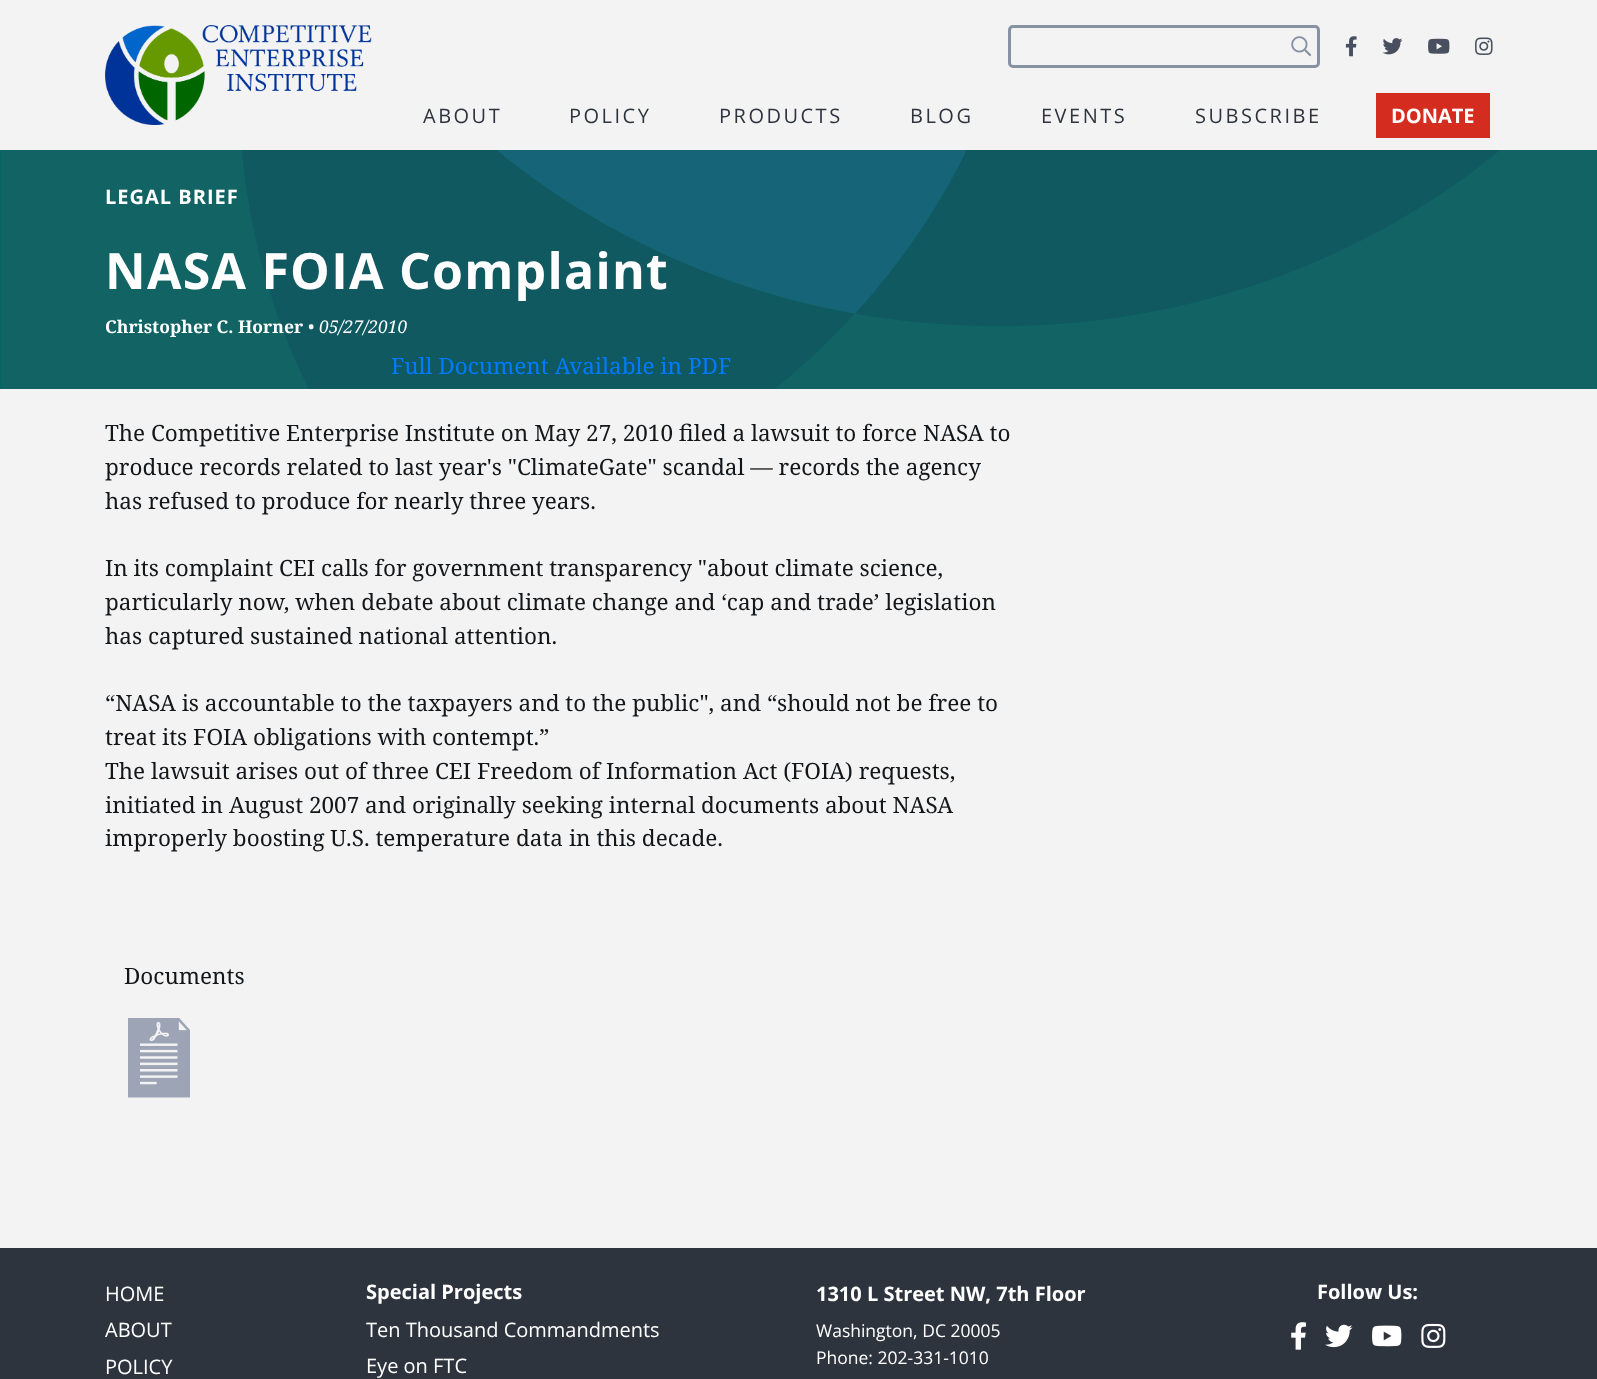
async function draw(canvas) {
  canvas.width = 1597
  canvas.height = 1379
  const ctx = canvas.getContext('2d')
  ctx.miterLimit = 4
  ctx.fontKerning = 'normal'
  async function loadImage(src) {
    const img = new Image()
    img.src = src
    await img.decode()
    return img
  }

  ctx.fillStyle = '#f3f3f3'
  ctx.fillRect(0, 0, 1597, 1379)
  ctx.drawImage(await loadImage('image0.png'), 105, 25, 267, 100)
  ctx.beginPath()
  ctx.roundRect(1009.5, 26.5, 309, 40, 3.5)
  ctx.strokeStyle = '#8691a2'
  ctx.lineWidth = 3
  ctx.stroke()
  ctx.drawImage(await loadImage('image1.png'), 1291, 36, 21, 21)
  ctx.drawImage(await loadImage('image2.png'), 1345, 36, 12, 21)
  ctx.drawImage(await loadImage('image3.png'), 1382, 38, 21, 17)
  ctx.drawImage(await loadImage('image4.png'), 1428, 38, 22, 16)
  ctx.drawImage(await loadImage('image5.png'), 1475, 37, 18, 18)
  ctx.letterSpacing = '2.5px'
  ctx.font = '20px Open Sans'
  ctx.fillStyle = '#2e343e'
  ctx.fillText('ABOUT', 423, 123)
  ctx.fillText('POLICY', 569, 123)
  ctx.fillText('PRODUCTS', 719, 123)
  ctx.fillText('BLOG', 910, 123)
  ctx.fillText('EVENTS', 1041, 123)
  ctx.fillText('SUBSCRIBE', 1195, 123)
  ctx.fillStyle = '#d52c20'
  ctx.fillRect(1376, 93, 114, 45)
  ctx.letterSpacing = '0px'
  ctx.font = 'bold 20px Open Sans'
  ctx.fillStyle = '#fff'
  ctx.fillText('DONATE', 1391, 123)
  ctx.fillStyle = '#066'
  ctx.fillRect(0, 150, 1597, 239)
  ctx.drawImage(await loadImage('image6.png'), 1, 150, 1596, 239)
  ctx.letterSpacing = '1px'
  ctx.fillStyle = '#fff'
  ctx.fillText('LEGAL BRIEF', 105, 204)
  ctx.letterSpacing = '0px'
  ctx.font = 'bold 17.5px Noto Serif'
  ctx.fillText('Christopher C. Horner', 105, 333)
  ctx.font = '17.5px Noto Serif'
  ctx.fillText('•', 308, 333)
  ctx.font = 'italic 17.5px Noto Serif'
  ctx.fillText('05/27/2010', 319, 333)
  ctx.letterSpacing = '1.25px'
  ctx.font = 'bold 50px Open Sans'
  ctx.fillText('NASA FOIA Complaint', 105, 289)
  ctx.letterSpacing = '0px'
  ctx.font = '22.5px Noto Serif'
  ctx.fillStyle = '#007bff'
  ctx.fillText('Full Document Available in PDF', 391, 374)
  ctx.fillStyle = '#14171a'
  ctx.fillText('The Competitive Enterprise Institute on May 27, 2010 filed a lawsuit to force NASA to', 105, 441)
  ctx.fillText('produce records related to last year\'s "ClimateGate" scandal — records the agency', 105, 475)
  ctx.fillText('has refused to produce for nearly three years.', 105, 509)
  ctx.fillText('In its complaint CEI calls for government transparency "about climate science,', 105, 576)
  ctx.fillText('particularly now, when debate about climate change and ‘cap and trade’ legislation', 105, 610)
  ctx.fillText('has captured sustained national attention.', 105, 644)
  ctx.fillText('“NASA is accountable to the taxpayers and to the public", and “should not be free to', 105, 711)
  ctx.fillText('treat its FOIA obligations with contempt.”', 105, 745)
  ctx.fillText('The lawsuit arises out of three CEI Freedom of Information Act (FOIA) requests,', 105, 779)
  ctx.fillText('initiated in August 2007 and originally seeking internal documents about NASA', 105, 813)
  ctx.fillText('improperly boosting U.S. temperature data in this decade.', 105, 846)
  ctx.fillText('Documents', 124, 984)
  ctx.drawImage(await loadImage('image7.png'), 128, 1018, 62, 80)
  ctx.fillStyle = '#2e343e'
  ctx.fillRect(0, 1248, 1597, 131)
  ctx.font = '20px Open Sans'
  ctx.fillStyle = '#fff'
  ctx.fillText('HOME', 105, 1301)
  ctx.fillText('ABOUT', 105, 1337)
  ctx.fillText('POLICY', 105, 1374)
  ctx.font = 'bold 20px Open Sans'
  ctx.fillText('Special Projects', 366, 1299)
  ctx.font = '20px Open Sans'
  ctx.fillText('Ten Thousand Commandments', 366, 1337)
  ctx.fillText('Eye on FTC', 366, 1373)
  ctx.font = 'bold 20px Open Sans'
  ctx.fillText('1310 L Street NW, 7th Floor', 816, 1301)
  ctx.font = '17.5px Open Sans'
  ctx.fillText('Washington, DC 20005', 816, 1337)
  ctx.fillText('Phone: 202-331-1010', 816, 1364)
  ctx.font = 'bold 20px Open Sans'
  ctx.fillText('Follow Us:', 1317, 1299)
  ctx.drawImage(await loadImage('image8.png'), 1291, 1322, 15, 28)
  ctx.drawImage(await loadImage('image9.png'), 1325, 1324, 28, 24)
  ctx.drawImage(await loadImage('image10.png'), 1372, 1325, 30, 22)
  ctx.drawImage(await loadImage('image11.png'), 1421, 1323, 25, 25)
}

draw(document.querySelector('canvas'))
